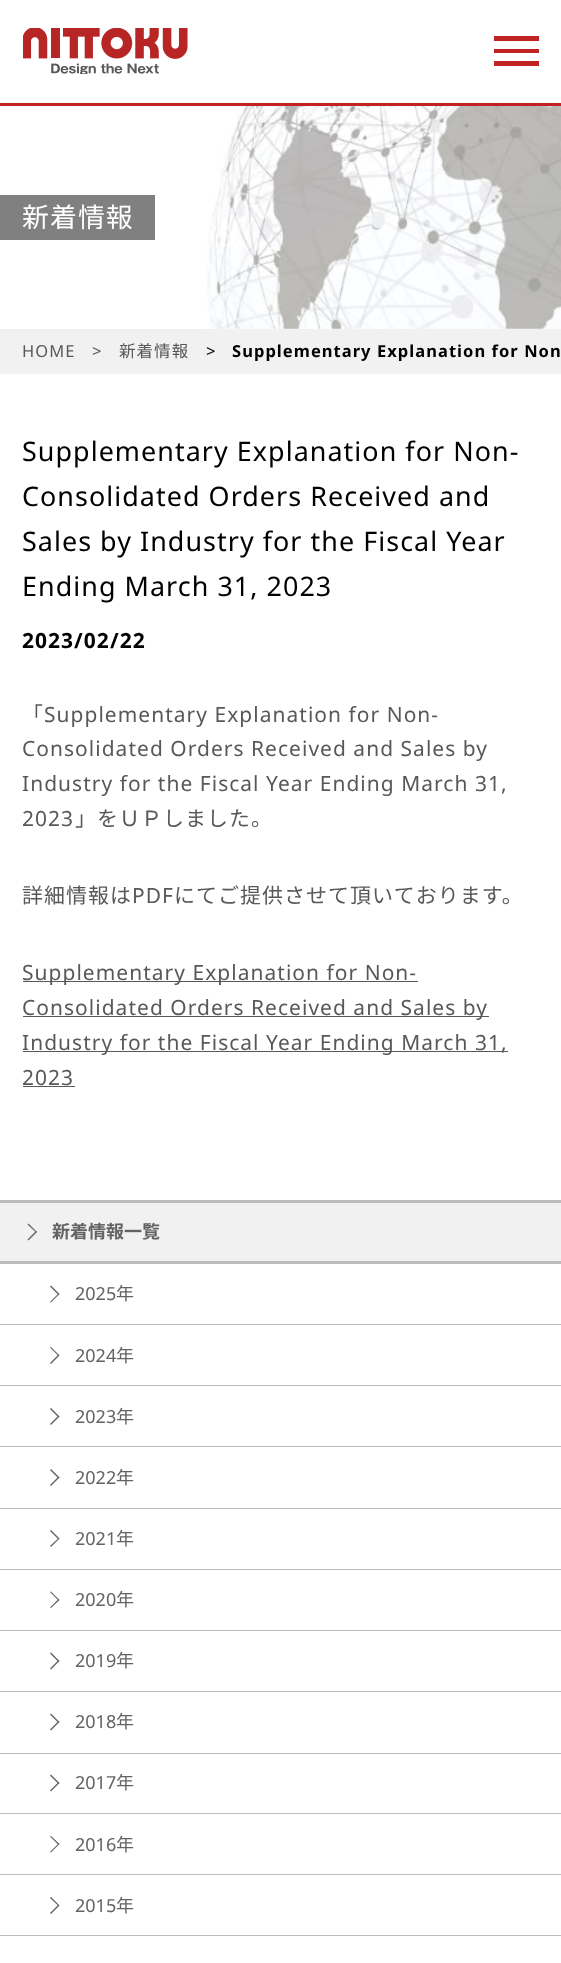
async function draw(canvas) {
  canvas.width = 561
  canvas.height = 1963
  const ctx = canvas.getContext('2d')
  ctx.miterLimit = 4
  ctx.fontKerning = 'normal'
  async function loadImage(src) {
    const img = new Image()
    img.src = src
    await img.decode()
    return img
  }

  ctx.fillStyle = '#fff'
  ctx.fillRect(0, 0, 561, 1963)
  ctx.fillStyle = '#c12324'
  ctx.fillRect(0, 103, 561, 3)
  ctx.drawImage(await loadImage('image0.png'), 23, 28, 165, 46)
  ctx.fillRect(494, 36, 45, 5)
  ctx.fillRect(494, 49, 45, 4)
  ctx.fillRect(494, 61, 45, 5)
  ctx.drawImage(await loadImage('image1.png'), 207, 106, 354, 223)
  ctx.fillStyle = '#808080'
  ctx.fillRect(0, 195, 155, 45)
  ctx.letterSpacing = '1.05px'
  ctx.font = '26.9px Noto Sans JP'
  ctx.fillStyle = '#fff'
  ctx.fillText('新着情報', 22, 227)
  ctx.fillStyle = '#f1f1f1'
  ctx.fillRect(0, 329, 561, 45)
  ctx.font = '16.5px Noto Sans'
  ctx.fillStyle = '#585858'
  ctx.fillText('HOME', 22, 357)
  ctx.fillText('>', 92, 357)
  ctx.font = '16.5px Noto Sans JP'
  ctx.fillText('新着情報', 119, 357)
  ctx.font = '16.5px Noto Sans'
  ctx.fillStyle = '#000'
  ctx.fillText('>', 206, 357)
  ctx.font = 'bold 16.5px Noto Sans'
  ctx.fillText('Supplementary Explanation for Non', 232, 357)
  ctx.font = '26.9px Noto Sans'
  ctx.fillText('Supplementary Explanation for Non-', 22, 461)
  ctx.fillText('Consolidated Orders Received and', 22, 506)
  ctx.fillText('Sales by Industry for the Fiscal Year', 22, 551)
  ctx.fillText('Ending March 31, 2023', 22, 596)
  ctx.font = 'bold 20.95px Noto Sans'
  ctx.fillText('2023/02/22', 22, 648)
  ctx.font = '20.95px Noto Sans JP'
  ctx.fillStyle = '#585858'
  ctx.fillText('「', 22, 722)
  ctx.font = '20.95px Noto Sans'
  ctx.fillText('Supplementary Explanation for Non-', 44, 722)
  ctx.fillText('Consolidated Orders Received and Sales by', 22, 756)
  ctx.fillText('Industry for the Fiscal Year Ending March 31,', 22, 791)
  ctx.fillText('2023', 22, 826)
  ctx.font = '20.95px Noto Sans JP'
  ctx.fillText('」をＵＰしました。', 75, 826)
  ctx.fillText('詳細情報は', 22, 903)
  ctx.font = '20.95px Noto Sans'
  ctx.fillText('PDF', 132, 903)
  ctx.font = '20.95px Noto Sans JP'
  ctx.fillText('にてご提供させて頂いております。', 174, 903)
  ctx.fillRect(23, 981, 395, 1)
  ctx.font = '20.95px Noto Sans'
  ctx.fillText('Supplementary Explanation for Non-', 22, 980)
  ctx.fillRect(23, 1016, 466, 1)
  ctx.fillText('Consolidated Orders Received and Sales by', 22, 1015)
  ctx.fillRect(23, 1051, 485, 1)
  ctx.fillText('Industry for the Fiscal Year Ending March 31,', 22, 1050)
  ctx.fillText('2023', 22, 1085)
  ctx.fillRect(23, 1086, 52, 1)
  ctx.fillStyle = '#f1f1f1'
  ctx.fillRect(0, 1203, 561, 58)
  ctx.fillStyle = '#bcbcbc'
  ctx.fillRect(0, 1200, 561, 3)
  ctx.fillRect(0, 1261, 561, 3)
  ctx.fillStyle = '#636363'
  ctx.beginPath()
  ctx.moveTo(28.5, 1223.5)
  ctx.lineTo(37, 1232)
  ctx.lineTo(36, 1232.5)
  ctx.lineTo(27.5, 1224.5)
  ctx.closePath()
  ctx.fill()
  ctx.beginPath()
  ctx.moveTo(36, 1231)
  ctx.lineTo(37, 1232)
  ctx.lineTo(28.5, 1240.5)
  ctx.lineTo(27.5, 1239.5)
  ctx.closePath()
  ctx.fill()
  ctx.letterSpacing = '0px'
  ctx.font = 'bold 18px Noto Sans JP'
  ctx.fillText('新着情報一覧', 52, 1238)
  ctx.fillStyle = '#bcbcbc'
  ctx.fillRect(0, 1324, 561, 1)
  ctx.fillStyle = '#636363'
  ctx.beginPath()
  ctx.moveTo(51, 1285.5)
  ctx.lineTo(59.5, 1294)
  ctx.lineTo(58.5, 1295)
  ctx.lineTo(50, 1286.5)
  ctx.closePath()
  ctx.fill()
  ctx.beginPath()
  ctx.moveTo(58.5, 1293.5)
  ctx.lineTo(59.5, 1294)
  ctx.lineTo(51, 1302.5)
  ctx.lineTo(50, 1302)
  ctx.closePath()
  ctx.fill()
  ctx.font = '18px Noto Sans'
  ctx.fillText('2025', 75, 1300)
  ctx.font = '18px Noto Sans JP'
  ctx.fillText('年', 116, 1300)
  ctx.fillStyle = '#bcbcbc'
  ctx.fillRect(0, 1385, 561, 1)
  ctx.fillStyle = '#636363'
  ctx.beginPath()
  ctx.moveTo(51, 1347)
  ctx.lineTo(59.5, 1355.5)
  ctx.lineTo(58.5, 1356)
  ctx.lineTo(50, 1347.5)
  ctx.closePath()
  ctx.fill()
  ctx.beginPath()
  ctx.moveTo(58.5, 1354.5)
  ctx.lineTo(59.5, 1355.5)
  ctx.lineTo(51, 1364)
  ctx.lineTo(50, 1363)
  ctx.closePath()
  ctx.fill()
  ctx.font = '18px Noto Sans'
  ctx.fillText('2024', 75, 1362)
  ctx.font = '18px Noto Sans JP'
  ctx.fillText('年', 116, 1362)
  ctx.fillStyle = '#bcbcbc'
  ctx.fillRect(0, 1446, 561, 1)
  ctx.fillStyle = '#636363'
  ctx.beginPath()
  ctx.moveTo(51, 1408)
  ctx.lineTo(59.5, 1416.5)
  ctx.lineTo(58.5, 1417.5)
  ctx.lineTo(50, 1409)
  ctx.closePath()
  ctx.fill()
  ctx.beginPath()
  ctx.moveTo(58.5, 1415.5)
  ctx.lineTo(59.5, 1416.5)
  ctx.lineTo(51, 1425)
  ctx.lineTo(50, 1424)
  ctx.closePath()
  ctx.fill()
  ctx.font = '18px Noto Sans'
  ctx.fillText('2023', 75, 1423)
  ctx.font = '18px Noto Sans JP'
  ctx.fillText('年', 116, 1423)
  ctx.fillStyle = '#bcbcbc'
  ctx.fillRect(0, 1508, 561, 1)
  ctx.fillStyle = '#636363'
  ctx.beginPath()
  ctx.moveTo(51, 1469)
  ctx.lineTo(59.5, 1477.5)
  ctx.lineTo(58.5, 1478.5)
  ctx.lineTo(50, 1470)
  ctx.closePath()
  ctx.fill()
  ctx.beginPath()
  ctx.moveTo(58.5, 1476.5)
  ctx.lineTo(59.5, 1477.5)
  ctx.lineTo(51, 1486)
  ctx.lineTo(50, 1485)
  ctx.closePath()
  ctx.fill()
  ctx.font = '18px Noto Sans'
  ctx.fillText('2022', 75, 1484)
  ctx.font = '18px Noto Sans JP'
  ctx.fillText('年', 116, 1484)
  ctx.fillStyle = '#bcbcbc'
  ctx.fillRect(0, 1569, 561, 1)
  ctx.fillStyle = '#636363'
  ctx.beginPath()
  ctx.moveTo(51, 1530)
  ctx.lineTo(59.5, 1538.5)
  ctx.lineTo(58.5, 1539.5)
  ctx.lineTo(50, 1531)
  ctx.closePath()
  ctx.fill()
  ctx.beginPath()
  ctx.moveTo(58.5, 1538)
  ctx.lineTo(59.5, 1538.5)
  ctx.lineTo(51, 1547)
  ctx.lineTo(50, 1546)
  ctx.closePath()
  ctx.fill()
  ctx.font = '18px Noto Sans'
  ctx.fillText('2021', 75, 1545)
  ctx.font = '18px Noto Sans JP'
  ctx.fillText('年', 116, 1545)
  ctx.fillStyle = '#bcbcbc'
  ctx.fillRect(0, 1630, 561, 1)
  ctx.fillStyle = '#636363'
  ctx.beginPath()
  ctx.moveTo(51, 1591.5)
  ctx.lineTo(59.5, 1600)
  ctx.lineTo(58.5, 1600.5)
  ctx.lineTo(50, 1592)
  ctx.closePath()
  ctx.fill()
  ctx.beginPath()
  ctx.moveTo(58.5, 1599)
  ctx.lineTo(59.5, 1600)
  ctx.lineTo(51, 1608)
  ctx.lineTo(50, 1607.5)
  ctx.closePath()
  ctx.fill()
  ctx.font = '18px Noto Sans'
  ctx.fillText('2020', 75, 1606)
  ctx.font = '18px Noto Sans JP'
  ctx.fillText('年', 116, 1606)
  ctx.fillStyle = '#bcbcbc'
  ctx.fillRect(0, 1691, 561, 1)
  ctx.fillStyle = '#636363'
  ctx.beginPath()
  ctx.moveTo(51, 1652.5)
  ctx.lineTo(59.5, 1661)
  ctx.lineTo(58.5, 1662)
  ctx.lineTo(50, 1653.5)
  ctx.closePath()
  ctx.fill()
  ctx.beginPath()
  ctx.moveTo(58.5, 1660)
  ctx.lineTo(59.5, 1661)
  ctx.lineTo(51, 1669.5)
  ctx.lineTo(50, 1668.5)
  ctx.closePath()
  ctx.fill()
  ctx.font = '18px Noto Sans'
  ctx.fillText('2019', 75, 1667)
  ctx.font = '18px Noto Sans JP'
  ctx.fillText('年', 116, 1667)
  ctx.fillStyle = '#bcbcbc'
  ctx.fillRect(0, 1753, 561, 1)
  ctx.fillStyle = '#636363'
  ctx.beginPath()
  ctx.moveTo(51, 1713.5)
  ctx.lineTo(59.5, 1722)
  ctx.lineTo(58.5, 1723)
  ctx.lineTo(50, 1714.5)
  ctx.closePath()
  ctx.fill()
  ctx.beginPath()
  ctx.moveTo(58.5, 1721)
  ctx.lineTo(59.5, 1722)
  ctx.lineTo(51, 1730.5)
  ctx.lineTo(50, 1729.5)
  ctx.closePath()
  ctx.fill()
  ctx.font = '18px Noto Sans'
  ctx.fillText('2018', 75, 1728)
  ctx.font = '18px Noto Sans JP'
  ctx.fillText('年', 116, 1728)
  ctx.fillStyle = '#bcbcbc'
  ctx.fillRect(0, 1813, 561, 1)
  ctx.fillStyle = '#636363'
  ctx.beginPath()
  ctx.moveTo(51, 1774.5)
  ctx.lineTo(59.5, 1783)
  ctx.lineTo(58.5, 1784)
  ctx.lineTo(50, 1775.5)
  ctx.closePath()
  ctx.fill()
  ctx.beginPath()
  ctx.moveTo(58.5, 1782)
  ctx.lineTo(59.5, 1783)
  ctx.lineTo(51, 1791.5)
  ctx.lineTo(50, 1790.5)
  ctx.closePath()
  ctx.fill()
  ctx.font = '18px Noto Sans'
  ctx.fillText('2017', 75, 1789)
  ctx.font = '18px Noto Sans JP'
  ctx.fillText('年', 116, 1789)
  ctx.fillStyle = '#bcbcbc'
  ctx.fillRect(0, 1874, 561, 1)
  ctx.fillStyle = '#636363'
  ctx.beginPath()
  ctx.moveTo(51, 1836)
  ctx.lineTo(59.5, 1844)
  ctx.lineTo(58.5, 1845)
  ctx.lineTo(50, 1836.5)
  ctx.closePath()
  ctx.fill()
  ctx.beginPath()
  ctx.moveTo(58.5, 1843.5)
  ctx.lineTo(59.5, 1844)
  ctx.lineTo(51, 1852.5)
  ctx.lineTo(50, 1852)
  ctx.closePath()
  ctx.fill()
  ctx.font = '18px Noto Sans'
  ctx.fillText('2016', 75, 1851)
  ctx.font = '18px Noto Sans JP'
  ctx.fillText('年', 116, 1851)
  ctx.fillStyle = '#bcbcbc'
  ctx.fillRect(0, 1935, 561, 1)
  ctx.fillStyle = '#636363'
  ctx.beginPath()
  ctx.moveTo(51, 1897)
  ctx.lineTo(59.5, 1905.5)
  ctx.lineTo(58.5, 1906)
  ctx.lineTo(50, 1898)
  ctx.closePath()
  ctx.fill()
  ctx.beginPath()
  ctx.moveTo(58.5, 1904.5)
  ctx.lineTo(59.5, 1905.5)
  ctx.lineTo(51, 1914)
  ctx.lineTo(50, 1913)
  ctx.closePath()
  ctx.fill()
  ctx.font = '18px Noto Sans'
  ctx.fillText('2015', 75, 1912)
  ctx.font = '18px Noto Sans JP'
  ctx.fillText('年', 116, 1912)
}

draw(document.querySelector('canvas'))
